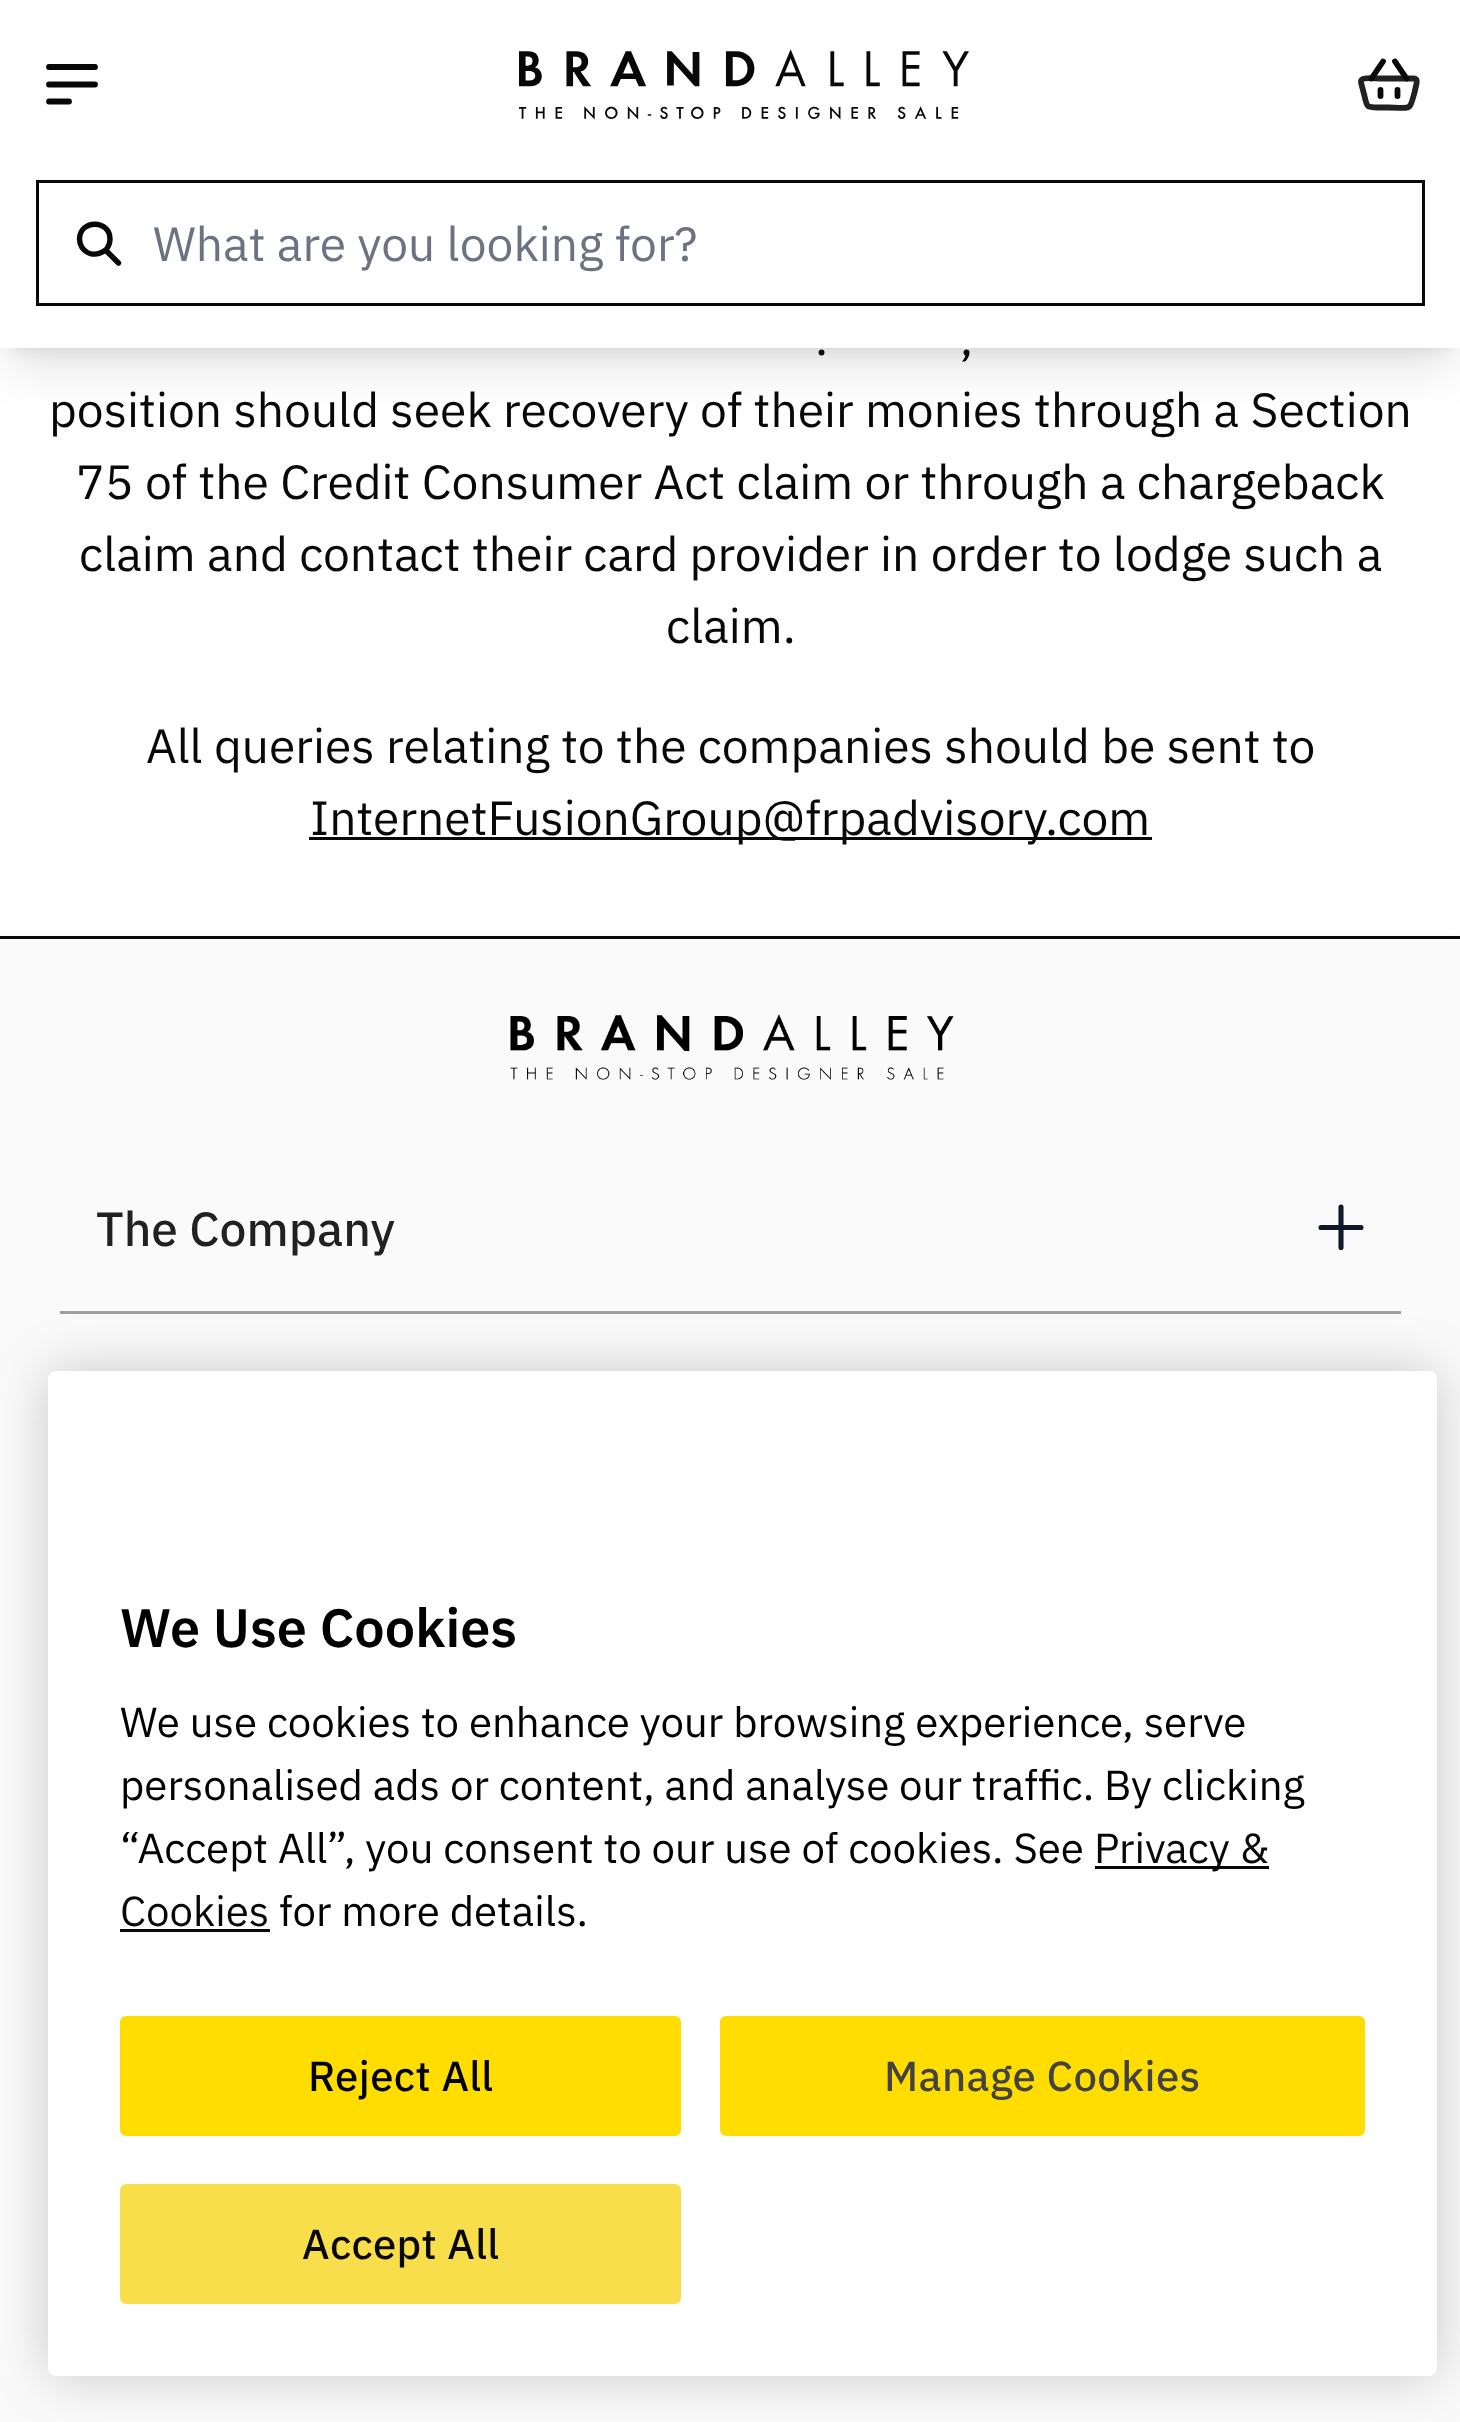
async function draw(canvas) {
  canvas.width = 1460
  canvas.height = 2422
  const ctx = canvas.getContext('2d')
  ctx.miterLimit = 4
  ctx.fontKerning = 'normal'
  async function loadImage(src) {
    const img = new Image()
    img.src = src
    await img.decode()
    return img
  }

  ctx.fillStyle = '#fff'
  ctx.fillRect(0, 0, 1460, 2422)
  ctx.fillStyle = '#0000001a'
  ctx.filter = 'blur(9px)'
  ctx.beginPath()
  ctx.rect(12, 24, 1437, 324)
  ctx.fill()
  ctx.filter = 'none'
  ctx.filter = 'blur(22.5px)'
  ctx.beginPath()
  ctx.rect(9, 39, 1443, 330)
  ctx.fill()
  ctx.filter = 'none'
  ctx.fillStyle = '#fff'
  ctx.fillRect(0, 7, 1460, 341)
  ctx.beginPath()
  ctx.moveTo(49, 101.5)
  ctx.lineTo(69, 101.5)
  ctx.moveTo(49, 67)
  ctx.lineTo(95, 67)
  ctx.closePath()
  ctx.moveTo(49, 84.5)
  ctx.lineTo(95, 84.5)
  ctx.closePath()
  ctx.strokeStyle = '#080808'
  ctx.lineWidth = 5.8
  ctx.lineCap = 'round'
  ctx.lineJoin = 'round'
  ctx.stroke()
  ctx.drawImage(await loadImage('image0.png'), 519, 49, 450, 71)
  ctx.beginPath()
  ctx.moveTo(1361, 82.5)
  ctx.bezierCurveTo(1359.5, 76.5, 1371.5, 78.5, 1380.5, 78.5)
  ctx.lineTo(1414.5, 78.5)
  ctx.bezierCurveTo(1418, 79, 1416.5, 83.5, 1416, 86)
  ctx.lineTo(1414.5, 92.5)
  ctx.bezierCurveTo(1409.5, 112, 1411, 107.5, 1389, 107.5)
  ctx.lineTo(1377.5, 107.5)
  ctx.bezierCurveTo(1366.5, 107.5, 1367, 107, 1364.5, 96)
  ctx.closePath()
  ctx.strokeStyle = '#212121'
  ctx.lineCap = 'butt'
  ctx.stroke()
  ctx.beginPath()
  ctx.moveTo(1380.5, 90)
  ctx.lineTo(1380.5, 96)
  ctx.moveTo(1397.5, 90)
  ctx.lineTo(1397.5, 96)
  ctx.moveTo(1371.5, 78.5)
  ctx.lineTo(1383, 61.5)
  ctx.moveTo(1406.5, 78.5)
  ctx.lineTo(1395, 61.5)
  ctx.strokeStyle = '#080808'
  ctx.lineCap = 'round'
  ctx.lineJoin = 'miter'
  ctx.stroke()
  ctx.lineWidth = 3
  ctx.strokeRect(37.5, 181.5, 1386, 123)
  ctx.beginPath()
  ctx.moveTo(118.5, 263)
  ctx.lineTo(105.5, 250)
  ctx.moveTo(110, 239)
  ctx.bezierCurveTo(110, 254, 90.5, 259.5, 82, 247.5)
  ctx.bezierCurveTo(80.5, 245, 79.5, 242, 79.5, 239)
  ctx.bezierCurveTo(80, 219, 110, 219.5, 110, 239)
  ctx.closePath()
  ctx.lineWidth = 5.4
  ctx.lineJoin = 'round'
  ctx.stroke()
  ctx.font = '48px Anuphan'
  ctx.fillStyle = '#6b7280'
  ctx.fillText('What are you looking for?', 153, 261)
  ctx.fillStyle = '#080808'
  ctx.fillText('.', 815, 355)
  ctx.fillText(',', 960, 355)
  ctx.fillText('position should seek recovery of their monies through a Section', 49, 427)
  ctx.fillText('75 of the Credit Consumer Act claim or through a chargeback', 76, 499)
  ctx.fillText('claim and contact their card provider in order to lodge such a', 79, 571)
  ctx.fillText('claim.', 666, 643)
  ctx.fillText('All queries relating to the companies should be sent to', 146, 763)
  ctx.fillRect(309, 837, 843, 3)
  ctx.fillText('InternetFusionGroup@frpadvisory.com', 310, 835)
  ctx.fillStyle = '#0000001a'
  ctx.filter = 'blur(4.5px)'
  ctx.beginPath()
  ctx.rect(0, 939, 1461, 864)
  ctx.fill()
  ctx.filter = 'none'
  ctx.fillStyle = '#fafafa'
  ctx.fillRect(0, 939, 1460, 1483)
  ctx.fillStyle = '#080808'
  ctx.fillRect(0, 936, 1460, 3)
  ctx.drawImage(await loadImage('image1.png'), 510, 1014, 444, 66)
  ctx.fillStyle = '#9e9e9e'
  ctx.fillRect(60, 1311, 1341, 3)
  ctx.font = '500 48px Anuphan'
  ctx.fillStyle = '#212121'
  ctx.fillText('The Company', 96, 1246)
  ctx.beginPath()
  ctx.moveTo(1341, 1207)
  ctx.lineTo(1341, 1227.5)
  ctx.moveTo(1341, 1227.5)
  ctx.lineTo(1341, 1247.5)
  ctx.moveTo(1341, 1227.5)
  ctx.lineTo(1361, 1227.5)
  ctx.moveTo(1341, 1227.5)
  ctx.lineTo(1321, 1227.5)
  ctx.strokeStyle = '#111928'
  ctx.lineWidth = 5.1
  ctx.stroke()
  ctx.fillStyle = '#00000033'
  ctx.filter = 'blur(27px)'
  ctx.beginPath()
  ctx.roundRect(48, 1371, 1389, 1005, 8)
  ctx.fill()
  ctx.filter = 'none'
  ctx.fillStyle = '#fff'
  ctx.beginPath()
  ctx.roundRect(48, 1371, 1389, 1005, 8)
  ctx.fill()
  ctx.font = '600 54px Anuphan'
  ctx.fillStyle = '#000'
  ctx.fillText('We Use Cookies', 120, 1647)
  ctx.font = '42px Anuphan'
  ctx.fillText('We use cookies to enhance your browsing experience, serve', 120, 1737)
  ctx.fillText('personalised ads or content, and analyse our traffic. By clicking', 120, 1800)
  ctx.fillText('“Accept All”, you consent to our use of cookies. See', 120, 1863)
  ctx.fillStyle = '#080808'
  ctx.fillRect(1095, 1866, 174, 3)
  ctx.fillText('Privacy &', 1094, 1863)
  ctx.fillText('Cookies', 120, 1926)
  ctx.fillRect(120, 1929, 150, 3)
  ctx.fillStyle = '#000'
  ctx.fillText('for more details.', 279, 1926)
  ctx.fillStyle = '#fd0'
  ctx.beginPath()
  ctx.roundRect(121.5, 2017.5, 558, 117, 4.5)
  ctx.fill()
  ctx.strokeStyle = '#fd0'
  ctx.lineWidth = 3
  ctx.lineJoin = 'miter'
  ctx.stroke()
  ctx.letterSpacing = '0.4px'
  ctx.font = '500 42px Anuphan'
  ctx.fillStyle = '#000'
  ctx.fillText('Reject All', 308, 2091)
  ctx.fillStyle = '#f9de4b'
  ctx.beginPath()
  ctx.roundRect(121.5, 2185.5, 558, 117, 4.5)
  ctx.fill()
  ctx.strokeStyle = '#f9de4b'
  ctx.stroke()
  ctx.fillStyle = '#080808'
  ctx.fillText('Accept All', 302, 2259)
  ctx.fillStyle = '#fd0'
  ctx.beginPath()
  ctx.roundRect(721.5, 2017.5, 642, 117, 4.5)
  ctx.fill()
  ctx.strokeStyle = '#fd0'
  ctx.stroke()
  ctx.fillStyle = '#424242'
  ctx.fillText('Manage Cookies', 884, 2091)
}

draw(document.querySelector('canvas'))
